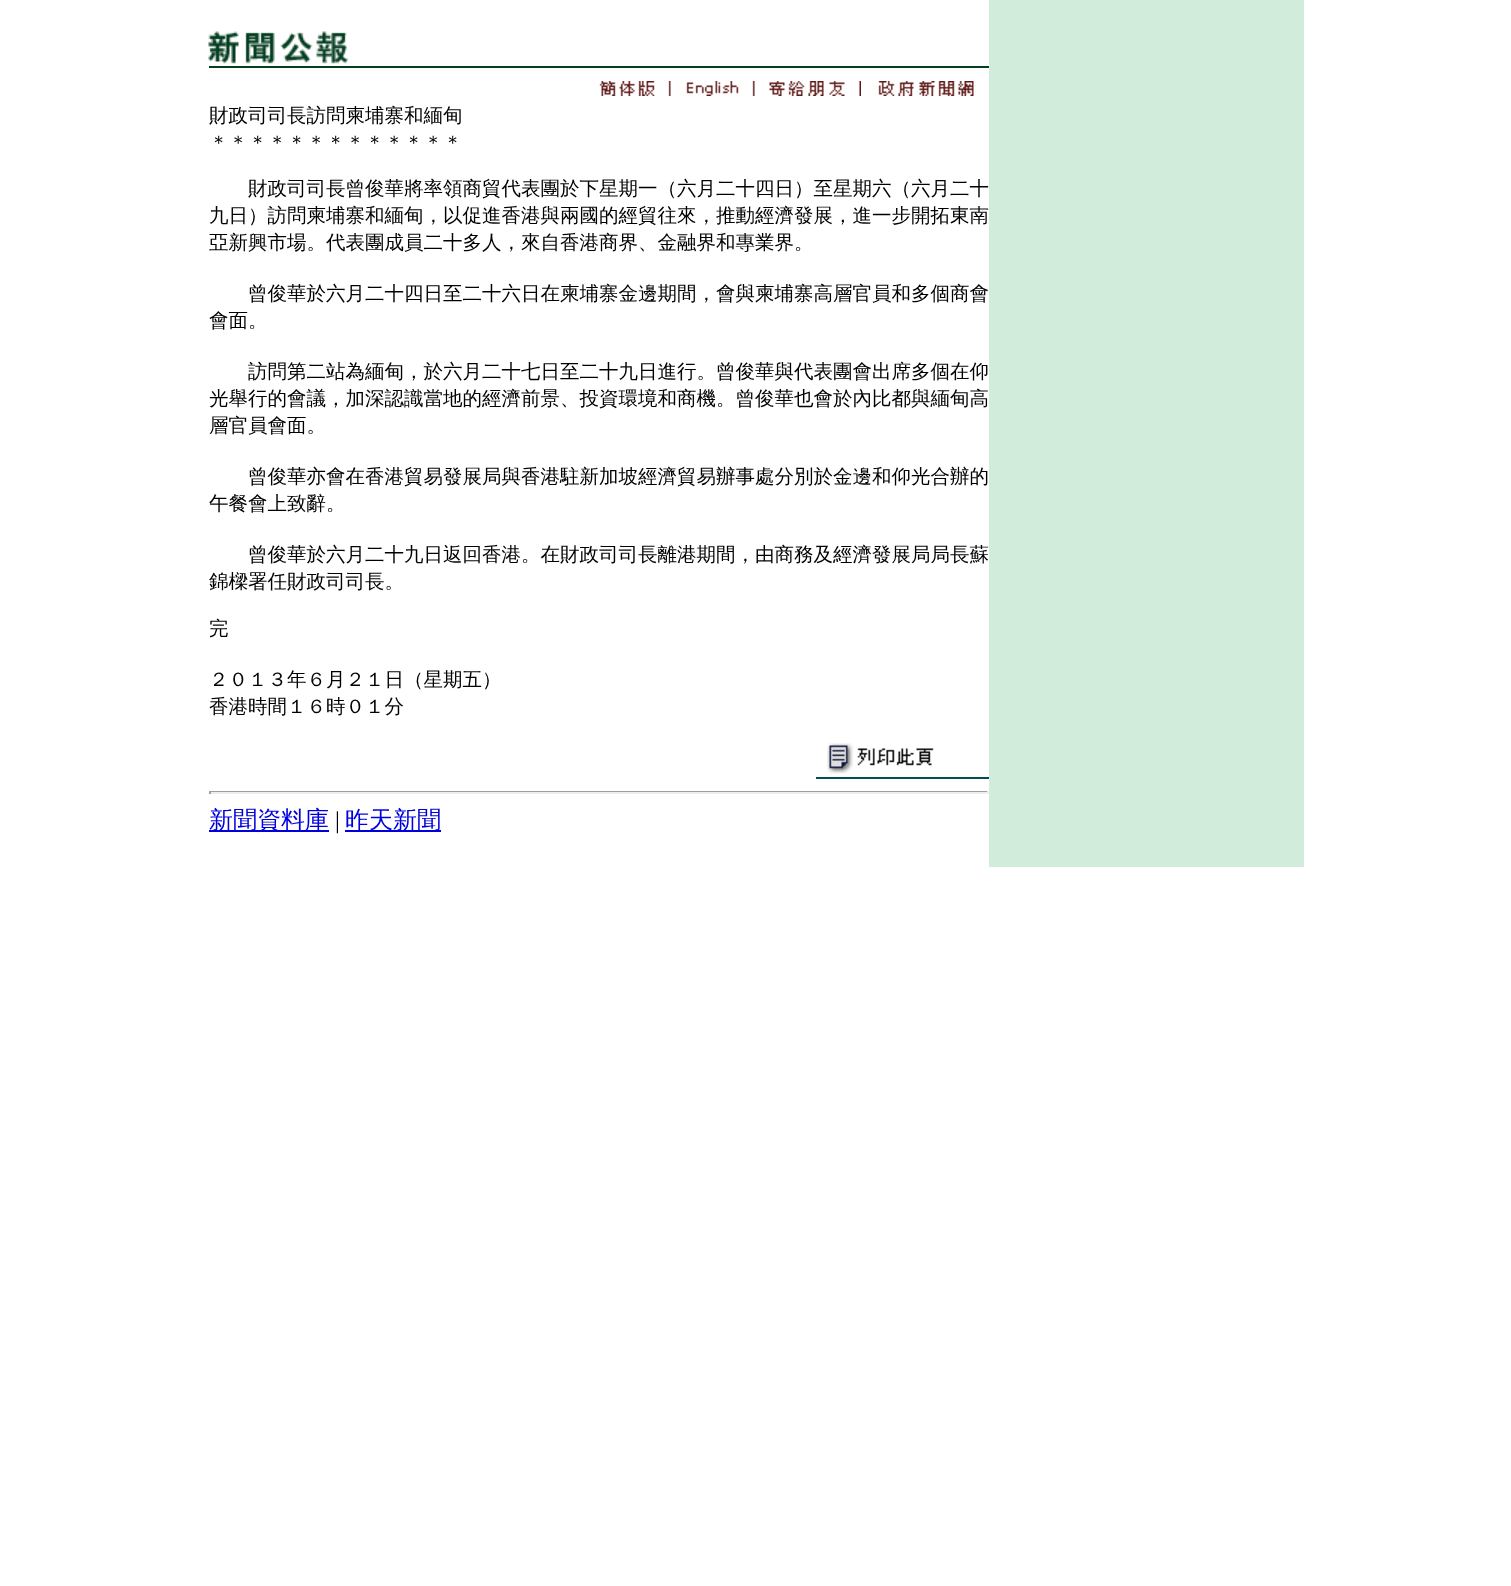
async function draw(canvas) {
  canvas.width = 1511
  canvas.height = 1586
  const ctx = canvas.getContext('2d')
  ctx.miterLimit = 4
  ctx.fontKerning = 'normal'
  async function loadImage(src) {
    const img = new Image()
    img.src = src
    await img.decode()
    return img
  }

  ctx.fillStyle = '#fff'
  ctx.fillRect(0, 0, 1511, 1586)
  ctx.fillStyle = '#d1ecda'
  ctx.fillRect(989, 0, 315, 867)
  ctx.fillStyle = '#053e21'
  ctx.fillRect(209, 66, 780, 2)
  ctx.drawImage(await loadImage('image0.png'), 208, 31, 140, 33)
  ctx.drawImage(await loadImage('image1.png'), 599, 81, 72, 15)
  ctx.drawImage(await loadImage('image2.png'), 686, 81, 69, 15)
  ctx.drawImage(await loadImage('image3.png'), 769, 81, 92, 15)
  ctx.drawImage(await loadImage('image4.png'), 878, 81, 96, 15)
  ctx.font = '500 19.5px WenQuanYi Zen Hei'
  ctx.fillStyle = '#000'
  ctx.fillText('財政司司長訪問柬埔寨和緬甸', 209, 122)
  ctx.fillText('＊＊＊＊＊＊＊＊＊＊＊＊＊', 209, 149)
  ctx.fillText('財政司司長曾俊華將率領商貿代表團於下星期一（六月二十四日）至星期六（六月二十', 248, 195)
  ctx.fillText('九日）訪問柬埔寨和緬甸，以促進香港與兩國的經貿往來，推動經濟發展，進一步開拓東南', 209, 222)
  ctx.fillText('亞新興市場。代表團成員二十多人，來自香港商界、金融界和專業界。', 209, 249)
  ctx.fillText('曾俊華於六月二十四日至二十六日在柬埔寨金邊期間，會與柬埔寨高層官員和多個商會', 248, 300)
  ctx.fillText('會面。', 209, 327)
  ctx.fillText('訪問第二站為緬甸，於六月二十七日至二十九日進行。曾俊華與代表團會出席多個在仰', 248, 378)
  ctx.fillText('光舉行的會議，加深認識當地的經濟前景、投資環境和商機。曾俊華也會於內比都與緬甸高', 209, 405)
  ctx.fillText('層官員會面。', 209, 432)
  ctx.fillText('曾俊華亦會在香港貿易發展局與香港駐新加坡經濟貿易辦事處分別於金邊和仰光合辦的', 248, 483)
  ctx.fillText('午餐會上致辭。', 209, 510)
  ctx.fillText('曾俊華於六月二十九日返回香港。在財政司司長離港期間，由商務及經濟發展局局長蘇', 248, 561)
  ctx.fillText('錦樑署任財政司司長。', 209, 588)
  ctx.fillText('完', 209, 635)
  ctx.fillText('２０１３年６月２１日（星期五）', 209, 686)
  ctx.fillText('香港時間１６時０１分', 209, 713)
  ctx.drawImage(await loadImage('image5.png'), 827, 743, 107, 31)
  ctx.fillStyle = '#004f4e'
  ctx.fillRect(816, 777, 173, 2)
  ctx.fillStyle = '#9f9f9f'
  ctx.fillRect(209, 791, 780, 1)
  ctx.fillStyle = '#eee'
  ctx.fillRect(987, 791, 2, 3)
  ctx.fillRect(209, 792, 780, 2)
  ctx.fillStyle = '#9f9f9f'
  ctx.fillRect(209, 791, 2, 3)
  ctx.fillStyle = '#00d'
  ctx.fillRect(209, 830, 120, 2)
  ctx.font = '500 24px WenQuanYi Zen Hei'
  ctx.fillText('新聞資料庫', 209, 828)
  ctx.font = '24px Liberation Serif'
  ctx.fillStyle = '#000'
  ctx.fillText('|', 335, 828)
  ctx.fillStyle = '#00d'
  ctx.fillRect(345, 830, 96, 2)
  ctx.font = '500 24px WenQuanYi Zen Hei'
  ctx.fillText('昨天新聞', 345, 828)
}

draw(document.querySelector('canvas'))
